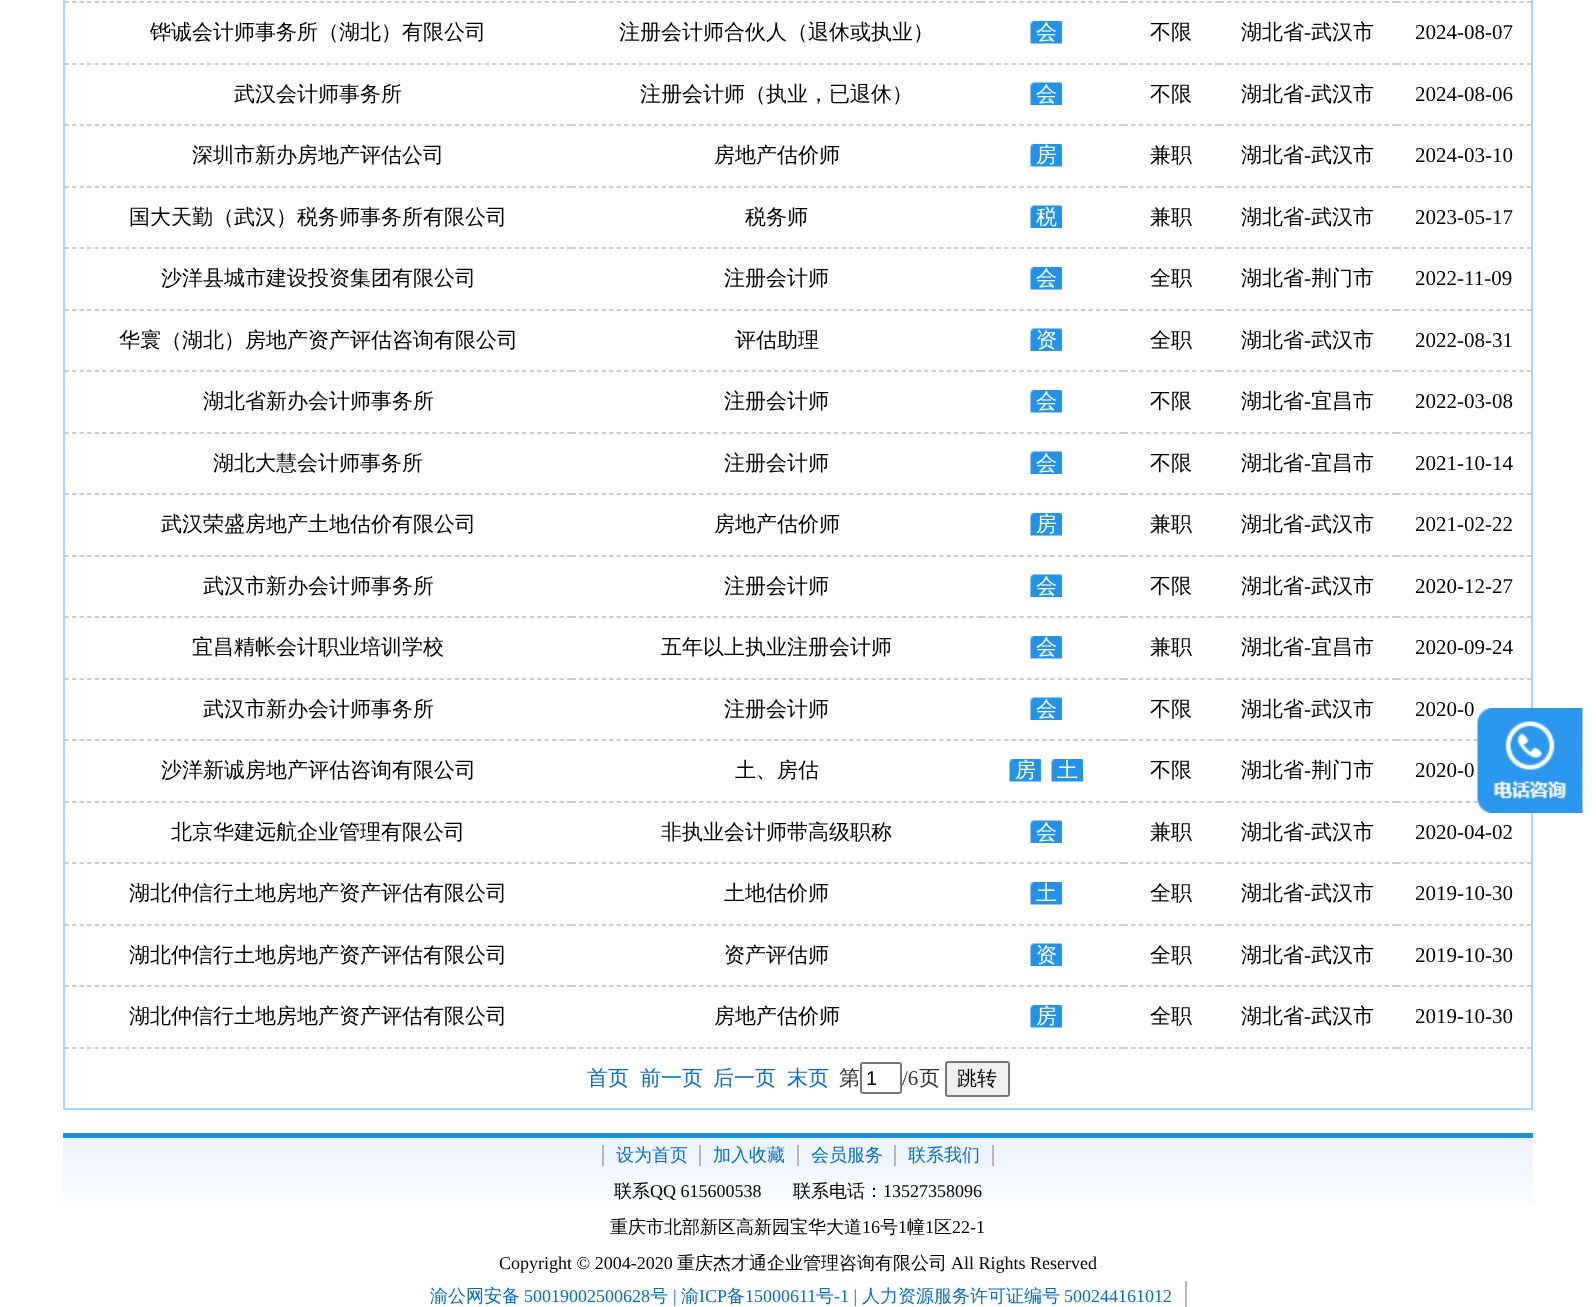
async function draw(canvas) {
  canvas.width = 1596
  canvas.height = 1307
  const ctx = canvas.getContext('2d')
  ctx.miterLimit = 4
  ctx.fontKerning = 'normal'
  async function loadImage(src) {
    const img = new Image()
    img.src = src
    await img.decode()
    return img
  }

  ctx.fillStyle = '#fff'
  ctx.fillRect(0, 0, 1596, 1307)
  ctx.strokeStyle = '#a2d6ff'
  ctx.lineWidth = 2
  ctx.strokeRect(64, -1, 1468, 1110)
  ctx.beginPath()
  ctx.moveTo(64.5, 2)
  ctx.lineTo(571.5, 2)
  ctx.strokeStyle = '#bebebe'
  ctx.lineWidth = 1.5
  ctx.setLineDash([4.5, 3])
  ctx.stroke()
  ctx.beginPath()
  ctx.moveTo(571.5, 2)
  ctx.lineTo(981, 2)
  ctx.stroke()
  ctx.beginPath()
  ctx.moveTo(981, 2)
  ctx.lineTo(1123.5, 2)
  ctx.setLineDash([4.5, 3.17])
  ctx.stroke()
  ctx.beginPath()
  ctx.moveTo(1123.5, 2)
  ctx.lineTo(1219.5, 2)
  ctx.setLineDash([4.5, 3.12])
  ctx.stroke()
  ctx.beginPath()
  ctx.moveTo(1219.5, 2)
  ctx.lineTo(1396.5, 2)
  ctx.setLineDash([4.5, 3])
  ctx.stroke()
  ctx.beginPath()
  ctx.moveTo(1396.5, 2)
  ctx.lineTo(1531.5, 2)
  ctx.setLineDash([4.5, 3.18])
  ctx.stroke()
  ctx.beginPath()
  ctx.moveTo(64.5, 64)
  ctx.lineTo(571.5, 64)
  ctx.setLineDash([4.5, 3])
  ctx.stroke()
  ctx.font = '500 21px WenQuanYi Zen Hei'
  ctx.fillStyle = '#000'
  ctx.fillText('铧诚会计师事务所（湖北）有限公司', 150, 39)
  ctx.beginPath()
  ctx.moveTo(571.5, 64)
  ctx.lineTo(981, 64)
  ctx.stroke()
  ctx.fillText('注册会计师合伙人（退休或执业）', 619, 39)
  ctx.beginPath()
  ctx.moveTo(981, 64)
  ctx.lineTo(1123.5, 64)
  ctx.setLineDash([4.5, 3.17])
  ctx.stroke()
  ctx.drawImage(await loadImage('image0.png'), 1030, 21, 32, 23)
  ctx.fillStyle = '#fff'
  ctx.fillText('会', 1036, 39)
  ctx.beginPath()
  ctx.moveTo(1123.5, 64)
  ctx.lineTo(1219.5, 64)
  ctx.setLineDash([4.5, 3.12])
  ctx.stroke()
  ctx.fillStyle = '#000'
  ctx.fillText('不限', 1150, 39)
  ctx.beginPath()
  ctx.moveTo(1219.5, 64)
  ctx.lineTo(1396.5, 64)
  ctx.setLineDash([4.5, 3])
  ctx.stroke()
  ctx.fillText('湖北省', 1241, 39)
  ctx.font = '21px Liberation Serif'
  ctx.fillText('-', 1304, 39)
  ctx.font = '500 21px WenQuanYi Zen Hei'
  ctx.fillText('武汉市', 1311, 39)
  ctx.beginPath()
  ctx.moveTo(1396.5, 64)
  ctx.lineTo(1531.5, 64)
  ctx.setLineDash([4.5, 3.18])
  ctx.stroke()
  ctx.font = '21px Liberation Serif'
  ctx.fillText('2024-08-07', 1415, 39)
  ctx.beginPath()
  ctx.moveTo(64.5, 125)
  ctx.lineTo(571.5, 125)
  ctx.setLineDash([4.5, 3])
  ctx.stroke()
  ctx.font = '500 21px WenQuanYi Zen Hei'
  ctx.fillText('武汉会计师事务所', 234, 101)
  ctx.beginPath()
  ctx.moveTo(571.5, 125)
  ctx.lineTo(981, 125)
  ctx.stroke()
  ctx.fillText('注册会计师（执业，已退休）', 640, 101)
  ctx.beginPath()
  ctx.moveTo(981, 125)
  ctx.lineTo(1123.5, 125)
  ctx.setLineDash([4.5, 3.17])
  ctx.stroke()
  ctx.drawImage(await loadImage('image1.png'), 1030, 82, 32, 23)
  ctx.fillStyle = '#fff'
  ctx.fillText('会', 1036, 101)
  ctx.beginPath()
  ctx.moveTo(1123.5, 125)
  ctx.lineTo(1219.5, 125)
  ctx.setLineDash([4.5, 3.12])
  ctx.stroke()
  ctx.fillStyle = '#000'
  ctx.fillText('不限', 1150, 101)
  ctx.beginPath()
  ctx.moveTo(1219.5, 125)
  ctx.lineTo(1396.5, 125)
  ctx.setLineDash([4.5, 3])
  ctx.stroke()
  ctx.fillText('湖北省', 1241, 101)
  ctx.font = '21px Liberation Serif'
  ctx.fillText('-', 1304, 101)
  ctx.font = '500 21px WenQuanYi Zen Hei'
  ctx.fillText('武汉市', 1311, 101)
  ctx.beginPath()
  ctx.moveTo(1396.5, 125)
  ctx.lineTo(1531.5, 125)
  ctx.setLineDash([4.5, 3.18])
  ctx.stroke()
  ctx.font = '21px Liberation Serif'
  ctx.fillText('2024-08-06', 1415, 101)
  ctx.beginPath()
  ctx.moveTo(64.5, 187)
  ctx.lineTo(571.5, 187)
  ctx.setLineDash([4.5, 3])
  ctx.stroke()
  ctx.font = '500 21px WenQuanYi Zen Hei'
  ctx.fillText('深圳市新办房地产评估公司', 192, 162)
  ctx.beginPath()
  ctx.moveTo(571.5, 187)
  ctx.lineTo(981, 187)
  ctx.stroke()
  ctx.fillText('房地产估价师', 714, 162)
  ctx.beginPath()
  ctx.moveTo(981, 187)
  ctx.lineTo(1123.5, 187)
  ctx.setLineDash([4.5, 3.17])
  ctx.stroke()
  ctx.drawImage(await loadImage('image0.png'), 1030, 144, 32, 23)
  ctx.fillStyle = '#fff'
  ctx.fillText('房', 1036, 162)
  ctx.beginPath()
  ctx.moveTo(1123.5, 187)
  ctx.lineTo(1219.5, 187)
  ctx.setLineDash([4.5, 3.12])
  ctx.stroke()
  ctx.fillStyle = '#000'
  ctx.fillText('兼职', 1150, 162)
  ctx.beginPath()
  ctx.moveTo(1219.5, 187)
  ctx.lineTo(1396.5, 187)
  ctx.setLineDash([4.5, 3])
  ctx.stroke()
  ctx.fillText('湖北省', 1241, 162)
  ctx.font = '21px Liberation Serif'
  ctx.fillText('-', 1304, 162)
  ctx.font = '500 21px WenQuanYi Zen Hei'
  ctx.fillText('武汉市', 1311, 162)
  ctx.beginPath()
  ctx.moveTo(1396.5, 187)
  ctx.lineTo(1531.5, 187)
  ctx.setLineDash([4.5, 3.18])
  ctx.stroke()
  ctx.font = '21px Liberation Serif'
  ctx.fillText('2024-03-10', 1415, 162)
  ctx.beginPath()
  ctx.moveTo(64.5, 248)
  ctx.lineTo(571.5, 248)
  ctx.setLineDash([4.5, 3])
  ctx.stroke()
  ctx.font = '500 21px WenQuanYi Zen Hei'
  ctx.fillText('国大天勤（武汉）税务师事务所有限公司', 129, 224)
  ctx.beginPath()
  ctx.moveTo(571.5, 248)
  ctx.lineTo(981, 248)
  ctx.stroke()
  ctx.fillText('税务师', 745, 224)
  ctx.beginPath()
  ctx.moveTo(981, 248)
  ctx.lineTo(1123.5, 248)
  ctx.setLineDash([4.5, 3.17])
  ctx.stroke()
  ctx.drawImage(await loadImage('image1.png'), 1030, 205, 32, 23)
  ctx.fillStyle = '#fff'
  ctx.fillText('税', 1036, 224)
  ctx.beginPath()
  ctx.moveTo(1123.5, 248)
  ctx.lineTo(1219.5, 248)
  ctx.setLineDash([4.5, 3.12])
  ctx.stroke()
  ctx.fillStyle = '#000'
  ctx.fillText('兼职', 1150, 224)
  ctx.beginPath()
  ctx.moveTo(1219.5, 248)
  ctx.lineTo(1396.5, 248)
  ctx.setLineDash([4.5, 3])
  ctx.stroke()
  ctx.fillText('湖北省', 1241, 224)
  ctx.font = '21px Liberation Serif'
  ctx.fillText('-', 1304, 224)
  ctx.font = '500 21px WenQuanYi Zen Hei'
  ctx.fillText('武汉市', 1311, 224)
  ctx.beginPath()
  ctx.moveTo(1396.5, 248)
  ctx.lineTo(1531.5, 248)
  ctx.setLineDash([4.5, 3.18])
  ctx.stroke()
  ctx.font = '21px Liberation Serif'
  ctx.fillText('2023-05-17', 1415, 224)
  ctx.beginPath()
  ctx.moveTo(64.5, 310)
  ctx.lineTo(571.5, 310)
  ctx.setLineDash([4.5, 3])
  ctx.stroke()
  ctx.font = '500 21px WenQuanYi Zen Hei'
  ctx.fillText('沙洋县城市建设投资集团有限公司', 161, 285)
  ctx.beginPath()
  ctx.moveTo(571.5, 310)
  ctx.lineTo(981, 310)
  ctx.stroke()
  ctx.fillText('注册会计师', 724, 285)
  ctx.beginPath()
  ctx.moveTo(981, 310)
  ctx.lineTo(1123.5, 310)
  ctx.setLineDash([4.5, 3.17])
  ctx.stroke()
  ctx.drawImage(await loadImage('image0.png'), 1030, 267, 32, 23)
  ctx.fillStyle = '#fff'
  ctx.fillText('会', 1036, 285)
  ctx.beginPath()
  ctx.moveTo(1123.5, 310)
  ctx.lineTo(1219.5, 310)
  ctx.setLineDash([4.5, 3.12])
  ctx.stroke()
  ctx.fillStyle = '#000'
  ctx.fillText('全职', 1150, 285)
  ctx.beginPath()
  ctx.moveTo(1219.5, 310)
  ctx.lineTo(1396.5, 310)
  ctx.setLineDash([4.5, 3])
  ctx.stroke()
  ctx.fillText('湖北省', 1241, 285)
  ctx.font = '21px Liberation Serif'
  ctx.fillText('-', 1304, 285)
  ctx.font = '500 21px WenQuanYi Zen Hei'
  ctx.fillText('荆门市', 1311, 285)
  ctx.beginPath()
  ctx.moveTo(1396.5, 310)
  ctx.lineTo(1531.5, 310)
  ctx.setLineDash([4.5, 3.18])
  ctx.stroke()
  ctx.font = '21px Liberation Serif'
  ctx.fillText('2022-11-09', 1415, 285)
  ctx.beginPath()
  ctx.moveTo(64.5, 371)
  ctx.lineTo(571.5, 371)
  ctx.setLineDash([4.5, 3])
  ctx.stroke()
  ctx.font = '500 21px WenQuanYi Zen Hei'
  ctx.fillText('华寰（湖北）房地产资产评估咨询有限公司', 119, 347)
  ctx.beginPath()
  ctx.moveTo(571.5, 371)
  ctx.lineTo(981, 371)
  ctx.stroke()
  ctx.fillText('评估助理', 735, 347)
  ctx.beginPath()
  ctx.moveTo(981, 371)
  ctx.lineTo(1123.5, 371)
  ctx.setLineDash([4.5, 3.17])
  ctx.stroke()
  ctx.drawImage(await loadImage('image1.png'), 1030, 328, 32, 23)
  ctx.fillStyle = '#fff'
  ctx.fillText('资', 1036, 347)
  ctx.beginPath()
  ctx.moveTo(1123.5, 371)
  ctx.lineTo(1219.5, 371)
  ctx.setLineDash([4.5, 3.12])
  ctx.stroke()
  ctx.fillStyle = '#000'
  ctx.fillText('全职', 1150, 347)
  ctx.beginPath()
  ctx.moveTo(1219.5, 371)
  ctx.lineTo(1396.5, 371)
  ctx.setLineDash([4.5, 3])
  ctx.stroke()
  ctx.fillText('湖北省', 1241, 347)
  ctx.font = '21px Liberation Serif'
  ctx.fillText('-', 1304, 347)
  ctx.font = '500 21px WenQuanYi Zen Hei'
  ctx.fillText('武汉市', 1311, 347)
  ctx.beginPath()
  ctx.moveTo(1396.5, 371)
  ctx.lineTo(1531.5, 371)
  ctx.setLineDash([4.5, 3.18])
  ctx.stroke()
  ctx.font = '21px Liberation Serif'
  ctx.fillText('2022-08-31', 1415, 347)
  ctx.beginPath()
  ctx.moveTo(64.5, 433)
  ctx.lineTo(571.5, 433)
  ctx.setLineDash([4.5, 3])
  ctx.stroke()
  ctx.font = '500 21px WenQuanYi Zen Hei'
  ctx.fillText('湖北省新办会计师事务所', 203, 408)
  ctx.beginPath()
  ctx.moveTo(571.5, 433)
  ctx.lineTo(981, 433)
  ctx.stroke()
  ctx.fillText('注册会计师', 724, 408)
  ctx.beginPath()
  ctx.moveTo(981, 433)
  ctx.lineTo(1123.5, 433)
  ctx.setLineDash([4.5, 3.17])
  ctx.stroke()
  ctx.drawImage(await loadImage('image0.png'), 1030, 390, 32, 23)
  ctx.fillStyle = '#fff'
  ctx.fillText('会', 1036, 408)
  ctx.beginPath()
  ctx.moveTo(1123.5, 433)
  ctx.lineTo(1219.5, 433)
  ctx.setLineDash([4.5, 3.12])
  ctx.stroke()
  ctx.fillStyle = '#000'
  ctx.fillText('不限', 1150, 408)
  ctx.beginPath()
  ctx.moveTo(1219.5, 433)
  ctx.lineTo(1396.5, 433)
  ctx.setLineDash([4.5, 3])
  ctx.stroke()
  ctx.fillText('湖北省', 1241, 408)
  ctx.font = '21px Liberation Serif'
  ctx.fillText('-', 1304, 408)
  ctx.font = '500 21px WenQuanYi Zen Hei'
  ctx.fillText('宜昌市', 1311, 408)
  ctx.beginPath()
  ctx.moveTo(1396.5, 433)
  ctx.lineTo(1531.5, 433)
  ctx.setLineDash([4.5, 3.18])
  ctx.stroke()
  ctx.font = '21px Liberation Serif'
  ctx.fillText('2022-03-08', 1415, 408)
  ctx.beginPath()
  ctx.moveTo(64.5, 494)
  ctx.lineTo(571.5, 494)
  ctx.setLineDash([4.5, 3])
  ctx.stroke()
  ctx.font = '500 21px WenQuanYi Zen Hei'
  ctx.fillText('湖北大慧会计师事务所', 213, 470)
  ctx.beginPath()
  ctx.moveTo(571.5, 494)
  ctx.lineTo(981, 494)
  ctx.stroke()
  ctx.fillText('注册会计师', 724, 470)
  ctx.beginPath()
  ctx.moveTo(981, 494)
  ctx.lineTo(1123.5, 494)
  ctx.setLineDash([4.5, 3.17])
  ctx.stroke()
  ctx.drawImage(await loadImage('image1.png'), 1030, 451, 32, 23)
  ctx.fillStyle = '#fff'
  ctx.fillText('会', 1036, 470)
  ctx.beginPath()
  ctx.moveTo(1123.5, 494)
  ctx.lineTo(1219.5, 494)
  ctx.setLineDash([4.5, 3.12])
  ctx.stroke()
  ctx.fillStyle = '#000'
  ctx.fillText('不限', 1150, 470)
  ctx.beginPath()
  ctx.moveTo(1219.5, 494)
  ctx.lineTo(1396.5, 494)
  ctx.setLineDash([4.5, 3])
  ctx.stroke()
  ctx.fillText('湖北省', 1241, 470)
  ctx.font = '21px Liberation Serif'
  ctx.fillText('-', 1304, 470)
  ctx.font = '500 21px WenQuanYi Zen Hei'
  ctx.fillText('宜昌市', 1311, 470)
  ctx.beginPath()
  ctx.moveTo(1396.5, 494)
  ctx.lineTo(1531.5, 494)
  ctx.setLineDash([4.5, 3.18])
  ctx.stroke()
  ctx.font = '21px Liberation Serif'
  ctx.fillText('2021-10-14', 1415, 470)
  ctx.beginPath()
  ctx.moveTo(64.5, 556)
  ctx.lineTo(571.5, 556)
  ctx.setLineDash([4.5, 3])
  ctx.stroke()
  ctx.font = '500 21px WenQuanYi Zen Hei'
  ctx.fillText('武汉荣盛房地产土地估价有限公司', 161, 531)
  ctx.beginPath()
  ctx.moveTo(571.5, 556)
  ctx.lineTo(981, 556)
  ctx.stroke()
  ctx.fillText('房地产估价师', 714, 531)
  ctx.beginPath()
  ctx.moveTo(981, 556)
  ctx.lineTo(1123.5, 556)
  ctx.setLineDash([4.5, 3.17])
  ctx.stroke()
  ctx.drawImage(await loadImage('image0.png'), 1030, 513, 32, 23)
  ctx.fillStyle = '#fff'
  ctx.fillText('房', 1036, 531)
  ctx.beginPath()
  ctx.moveTo(1123.5, 556)
  ctx.lineTo(1219.5, 556)
  ctx.setLineDash([4.5, 3.12])
  ctx.stroke()
  ctx.fillStyle = '#000'
  ctx.fillText('兼职', 1150, 531)
  ctx.beginPath()
  ctx.moveTo(1219.5, 556)
  ctx.lineTo(1396.5, 556)
  ctx.setLineDash([4.5, 3])
  ctx.stroke()
  ctx.fillText('湖北省', 1241, 531)
  ctx.font = '21px Liberation Serif'
  ctx.fillText('-', 1304, 531)
  ctx.font = '500 21px WenQuanYi Zen Hei'
  ctx.fillText('武汉市', 1311, 531)
  ctx.beginPath()
  ctx.moveTo(1396.5, 556)
  ctx.lineTo(1531.5, 556)
  ctx.setLineDash([4.5, 3.18])
  ctx.stroke()
  ctx.font = '21px Liberation Serif'
  ctx.fillText('2021-02-22', 1415, 531)
  ctx.beginPath()
  ctx.moveTo(64.5, 617)
  ctx.lineTo(571.5, 617)
  ctx.setLineDash([4.5, 3])
  ctx.stroke()
  ctx.font = '500 21px WenQuanYi Zen Hei'
  ctx.fillText('武汉市新办会计师事务所', 203, 593)
  ctx.beginPath()
  ctx.moveTo(571.5, 617)
  ctx.lineTo(981, 617)
  ctx.stroke()
  ctx.fillText('注册会计师', 724, 593)
  ctx.beginPath()
  ctx.moveTo(981, 617)
  ctx.lineTo(1123.5, 617)
  ctx.setLineDash([4.5, 3.17])
  ctx.stroke()
  ctx.drawImage(await loadImage('image1.png'), 1030, 574, 32, 23)
  ctx.fillStyle = '#fff'
  ctx.fillText('会', 1036, 593)
  ctx.beginPath()
  ctx.moveTo(1123.5, 617)
  ctx.lineTo(1219.5, 617)
  ctx.setLineDash([4.5, 3.12])
  ctx.stroke()
  ctx.fillStyle = '#000'
  ctx.fillText('不限', 1150, 593)
  ctx.beginPath()
  ctx.moveTo(1219.5, 617)
  ctx.lineTo(1396.5, 617)
  ctx.setLineDash([4.5, 3])
  ctx.stroke()
  ctx.fillText('湖北省', 1241, 593)
  ctx.font = '21px Liberation Serif'
  ctx.fillText('-', 1304, 593)
  ctx.font = '500 21px WenQuanYi Zen Hei'
  ctx.fillText('武汉市', 1311, 593)
  ctx.beginPath()
  ctx.moveTo(1396.5, 617)
  ctx.lineTo(1531.5, 617)
  ctx.setLineDash([4.5, 3.18])
  ctx.stroke()
  ctx.font = '21px Liberation Serif'
  ctx.fillText('2020-12-27', 1415, 593)
  ctx.beginPath()
  ctx.moveTo(64.5, 679)
  ctx.lineTo(571.5, 679)
  ctx.setLineDash([4.5, 3])
  ctx.stroke()
  ctx.font = '500 21px WenQuanYi Zen Hei'
  ctx.fillText('宜昌精帐会计职业培训学校', 192, 654)
  ctx.beginPath()
  ctx.moveTo(571.5, 679)
  ctx.lineTo(981, 679)
  ctx.stroke()
  ctx.fillText('五年以上执业注册会计师', 661, 654)
  ctx.beginPath()
  ctx.moveTo(981, 679)
  ctx.lineTo(1123.5, 679)
  ctx.setLineDash([4.5, 3.17])
  ctx.stroke()
  ctx.drawImage(await loadImage('image0.png'), 1030, 636, 32, 23)
  ctx.fillStyle = '#fff'
  ctx.fillText('会', 1036, 654)
  ctx.beginPath()
  ctx.moveTo(1123.5, 679)
  ctx.lineTo(1219.5, 679)
  ctx.setLineDash([4.5, 3.12])
  ctx.stroke()
  ctx.fillStyle = '#000'
  ctx.fillText('兼职', 1150, 654)
  ctx.beginPath()
  ctx.moveTo(1219.5, 679)
  ctx.lineTo(1396.5, 679)
  ctx.setLineDash([4.5, 3])
  ctx.stroke()
  ctx.fillText('湖北省', 1241, 654)
  ctx.font = '21px Liberation Serif'
  ctx.fillText('-', 1304, 654)
  ctx.font = '500 21px WenQuanYi Zen Hei'
  ctx.fillText('宜昌市', 1311, 654)
  ctx.beginPath()
  ctx.moveTo(1396.5, 679)
  ctx.lineTo(1531.5, 679)
  ctx.setLineDash([4.5, 3.18])
  ctx.stroke()
  ctx.font = '21px Liberation Serif'
  ctx.fillText('2020-09-24', 1415, 654)
  ctx.beginPath()
  ctx.moveTo(64.5, 740)
  ctx.lineTo(571.5, 740)
  ctx.setLineDash([4.5, 3])
  ctx.stroke()
  ctx.font = '500 21px WenQuanYi Zen Hei'
  ctx.fillText('武汉市新办会计师事务所', 203, 716)
  ctx.beginPath()
  ctx.moveTo(571.5, 740)
  ctx.lineTo(981, 740)
  ctx.stroke()
  ctx.fillText('注册会计师', 724, 716)
  ctx.beginPath()
  ctx.moveTo(981, 740)
  ctx.lineTo(1123.5, 740)
  ctx.setLineDash([4.5, 3.17])
  ctx.stroke()
  ctx.drawImage(await loadImage('image1.png'), 1030, 697, 32, 23)
  ctx.fillStyle = '#fff'
  ctx.fillText('会', 1036, 716)
  ctx.beginPath()
  ctx.moveTo(1123.5, 740)
  ctx.lineTo(1219.5, 740)
  ctx.setLineDash([4.5, 3.12])
  ctx.stroke()
  ctx.fillStyle = '#000'
  ctx.fillText('不限', 1150, 716)
  ctx.beginPath()
  ctx.moveTo(1219.5, 740)
  ctx.lineTo(1396.5, 740)
  ctx.setLineDash([4.5, 3])
  ctx.stroke()
  ctx.fillText('湖北省', 1241, 716)
  ctx.font = '21px Liberation Serif'
  ctx.fillText('-', 1304, 716)
  ctx.font = '500 21px WenQuanYi Zen Hei'
  ctx.fillText('武汉市', 1311, 716)
  ctx.beginPath()
  ctx.moveTo(1396.5, 740)
  ctx.lineTo(1531.5, 740)
  ctx.setLineDash([4.5, 3.18])
  ctx.stroke()
  ctx.font = '21px Liberation Serif'
  ctx.fillText('2020-0', 1415, 716)
  ctx.beginPath()
  ctx.moveTo(64.5, 802)
  ctx.lineTo(571.5, 802)
  ctx.setLineDash([4.5, 3])
  ctx.stroke()
  ctx.font = '500 21px WenQuanYi Zen Hei'
  ctx.fillText('沙洋新诚房地产评估咨询有限公司', 161, 777)
  ctx.beginPath()
  ctx.moveTo(571.5, 802)
  ctx.lineTo(981, 802)
  ctx.stroke()
  ctx.fillText('土、房估', 735, 777)
  ctx.beginPath()
  ctx.moveTo(981, 802)
  ctx.lineTo(1123.5, 802)
  ctx.setLineDash([4.5, 3.17])
  ctx.stroke()
  ctx.drawImage(await loadImage('image0.png'), 1009, 759, 32, 23)
  ctx.fillStyle = '#fff'
  ctx.fillText('房', 1015, 777)
  ctx.drawImage(await loadImage('image2.png'), 1051, 759, 32, 23)
  ctx.fillText('土', 1057, 777)
  ctx.beginPath()
  ctx.moveTo(1123.5, 802)
  ctx.lineTo(1219.5, 802)
  ctx.setLineDash([4.5, 3.12])
  ctx.stroke()
  ctx.fillStyle = '#000'
  ctx.fillText('不限', 1150, 777)
  ctx.beginPath()
  ctx.moveTo(1219.5, 802)
  ctx.lineTo(1396.5, 802)
  ctx.setLineDash([4.5, 3])
  ctx.stroke()
  ctx.fillText('湖北省', 1241, 777)
  ctx.font = '21px Liberation Serif'
  ctx.fillText('-', 1304, 777)
  ctx.font = '500 21px WenQuanYi Zen Hei'
  ctx.fillText('荆门市', 1311, 777)
  ctx.beginPath()
  ctx.moveTo(1396.5, 802)
  ctx.lineTo(1531.5, 802)
  ctx.setLineDash([4.5, 3.18])
  ctx.stroke()
  ctx.font = '21px Liberation Serif'
  ctx.fillText('2020-0', 1415, 777)
  ctx.beginPath()
  ctx.moveTo(64.5, 863)
  ctx.lineTo(571.5, 863)
  ctx.setLineDash([4.5, 3])
  ctx.stroke()
  ctx.font = '500 21px WenQuanYi Zen Hei'
  ctx.fillText('北京华建远航企业管理有限公司', 171, 839)
  ctx.beginPath()
  ctx.moveTo(571.5, 863)
  ctx.lineTo(981, 863)
  ctx.stroke()
  ctx.fillText('非执业会计师带高级职称', 661, 839)
  ctx.beginPath()
  ctx.moveTo(981, 863)
  ctx.lineTo(1123.5, 863)
  ctx.setLineDash([4.5, 3.17])
  ctx.stroke()
  ctx.drawImage(await loadImage('image1.png'), 1030, 820, 32, 23)
  ctx.fillStyle = '#fff'
  ctx.fillText('会', 1036, 839)
  ctx.beginPath()
  ctx.moveTo(1123.5, 863)
  ctx.lineTo(1219.5, 863)
  ctx.setLineDash([4.5, 3.12])
  ctx.stroke()
  ctx.fillStyle = '#000'
  ctx.fillText('兼职', 1150, 839)
  ctx.beginPath()
  ctx.moveTo(1219.5, 863)
  ctx.lineTo(1396.5, 863)
  ctx.setLineDash([4.5, 3])
  ctx.stroke()
  ctx.fillText('湖北省', 1241, 839)
  ctx.font = '21px Liberation Serif'
  ctx.fillText('-', 1304, 839)
  ctx.font = '500 21px WenQuanYi Zen Hei'
  ctx.fillText('武汉市', 1311, 839)
  ctx.beginPath()
  ctx.moveTo(1396.5, 863)
  ctx.lineTo(1531.5, 863)
  ctx.setLineDash([4.5, 3.18])
  ctx.stroke()
  ctx.font = '21px Liberation Serif'
  ctx.fillText('2020-04-02', 1415, 839)
  ctx.beginPath()
  ctx.moveTo(64.5, 925)
  ctx.lineTo(571.5, 925)
  ctx.setLineDash([4.5, 3])
  ctx.stroke()
  ctx.font = '500 21px WenQuanYi Zen Hei'
  ctx.fillText('湖北仲信行土地房地产资产评估有限公司', 129, 900)
  ctx.beginPath()
  ctx.moveTo(571.5, 925)
  ctx.lineTo(981, 925)
  ctx.stroke()
  ctx.fillText('土地估价师', 724, 900)
  ctx.beginPath()
  ctx.moveTo(981, 925)
  ctx.lineTo(1123.5, 925)
  ctx.setLineDash([4.5, 3.17])
  ctx.stroke()
  ctx.drawImage(await loadImage('image0.png'), 1030, 882, 32, 23)
  ctx.fillStyle = '#fff'
  ctx.fillText('土', 1036, 900)
  ctx.beginPath()
  ctx.moveTo(1123.5, 925)
  ctx.lineTo(1219.5, 925)
  ctx.setLineDash([4.5, 3.12])
  ctx.stroke()
  ctx.fillStyle = '#000'
  ctx.fillText('全职', 1150, 900)
  ctx.beginPath()
  ctx.moveTo(1219.5, 925)
  ctx.lineTo(1396.5, 925)
  ctx.setLineDash([4.5, 3])
  ctx.stroke()
  ctx.fillText('湖北省', 1241, 900)
  ctx.font = '21px Liberation Serif'
  ctx.fillText('-', 1304, 900)
  ctx.font = '500 21px WenQuanYi Zen Hei'
  ctx.fillText('武汉市', 1311, 900)
  ctx.beginPath()
  ctx.moveTo(1396.5, 925)
  ctx.lineTo(1531.5, 925)
  ctx.setLineDash([4.5, 3.18])
  ctx.stroke()
  ctx.font = '21px Liberation Serif'
  ctx.fillText('2019-10-30', 1415, 900)
  ctx.beginPath()
  ctx.moveTo(64.5, 986)
  ctx.lineTo(571.5, 986)
  ctx.setLineDash([4.5, 3])
  ctx.stroke()
  ctx.font = '500 21px WenQuanYi Zen Hei'
  ctx.fillText('湖北仲信行土地房地产资产评估有限公司', 129, 962)
  ctx.beginPath()
  ctx.moveTo(571.5, 986)
  ctx.lineTo(981, 986)
  ctx.stroke()
  ctx.fillText('资产评估师', 724, 962)
  ctx.beginPath()
  ctx.moveTo(981, 986)
  ctx.lineTo(1123.5, 986)
  ctx.setLineDash([4.5, 3.17])
  ctx.stroke()
  ctx.drawImage(await loadImage('image1.png'), 1030, 943, 32, 23)
  ctx.fillStyle = '#fff'
  ctx.fillText('资', 1036, 962)
  ctx.beginPath()
  ctx.moveTo(1123.5, 986)
  ctx.lineTo(1219.5, 986)
  ctx.setLineDash([4.5, 3.12])
  ctx.stroke()
  ctx.fillStyle = '#000'
  ctx.fillText('全职', 1150, 962)
  ctx.beginPath()
  ctx.moveTo(1219.5, 986)
  ctx.lineTo(1396.5, 986)
  ctx.setLineDash([4.5, 3])
  ctx.stroke()
  ctx.fillText('湖北省', 1241, 962)
  ctx.font = '21px Liberation Serif'
  ctx.fillText('-', 1304, 962)
  ctx.font = '500 21px WenQuanYi Zen Hei'
  ctx.fillText('武汉市', 1311, 962)
  ctx.beginPath()
  ctx.moveTo(1396.5, 986)
  ctx.lineTo(1531.5, 986)
  ctx.setLineDash([4.5, 3.18])
  ctx.stroke()
  ctx.font = '21px Liberation Serif'
  ctx.fillText('2019-10-30', 1415, 962)
  ctx.beginPath()
  ctx.moveTo(64.5, 1048)
  ctx.lineTo(571.5, 1048)
  ctx.setLineDash([4.5, 3])
  ctx.stroke()
  ctx.font = '500 21px WenQuanYi Zen Hei'
  ctx.fillText('湖北仲信行土地房地产资产评估有限公司', 129, 1023)
  ctx.beginPath()
  ctx.moveTo(571.5, 1048)
  ctx.lineTo(981, 1048)
  ctx.stroke()
  ctx.fillText('房地产估价师', 714, 1023)
  ctx.beginPath()
  ctx.moveTo(981, 1048)
  ctx.lineTo(1123.5, 1048)
  ctx.setLineDash([4.5, 3.17])
  ctx.stroke()
  ctx.drawImage(await loadImage('image0.png'), 1030, 1005, 32, 23)
  ctx.fillStyle = '#fff'
  ctx.fillText('房', 1036, 1023)
  ctx.beginPath()
  ctx.moveTo(1123.5, 1048)
  ctx.lineTo(1219.5, 1048)
  ctx.setLineDash([4.5, 3.12])
  ctx.stroke()
  ctx.fillStyle = '#000'
  ctx.fillText('全职', 1150, 1023)
  ctx.beginPath()
  ctx.moveTo(1219.5, 1048)
  ctx.lineTo(1396.5, 1048)
  ctx.setLineDash([4.5, 3])
  ctx.stroke()
  ctx.fillText('湖北省', 1241, 1023)
  ctx.font = '21px Liberation Serif'
  ctx.fillText('-', 1304, 1023)
  ctx.font = '500 21px WenQuanYi Zen Hei'
  ctx.fillText('武汉市', 1311, 1023)
  ctx.beginPath()
  ctx.moveTo(1396.5, 1048)
  ctx.lineTo(1531.5, 1048)
  ctx.setLineDash([4.5, 3.18])
  ctx.stroke()
  ctx.font = '21px Liberation Serif'
  ctx.fillText('2019-10-30', 1415, 1023)
  ctx.font = '500 21px WenQuanYi Zen Hei'
  ctx.fillStyle = '#056dc0'
  ctx.fillText('首页', 587, 1085)
  ctx.fillText('前一页', 640, 1085)
  ctx.fillText('后一页', 713, 1085)
  ctx.fillText('末页', 787, 1085)
  ctx.fillStyle = '#333'
  ctx.fillText('第', 839, 1085)
  ctx.beginPath()
  ctx.roundRect(861, 1063, 40, 30, 2)
  ctx.strokeStyle = '#767676'
  ctx.lineWidth = 2
  ctx.setLineDash([])
  ctx.stroke()
  ctx.font = '20px Liberation Sans'
  ctx.fillStyle = '#000'
  ctx.fillText('1', 866, 1085)
  ctx.font = '21px Liberation Serif'
  ctx.fillStyle = '#333'
  ctx.fillText('/6', 902, 1085)
  ctx.font = '500 21px WenQuanYi Zen Hei'
  ctx.fillText('页', 919, 1085)
  ctx.fillStyle = '#efefef'
  ctx.beginPath()
  ctx.roundRect(946, 1062, 63, 34, 2)
  ctx.fill()
  ctx.stroke()
  ctx.font = '500 20px WenQuanYi Zen Hei'
  ctx.fillStyle = '#000'
  ctx.fillText('跳转', 957, 1085)
  ctx.drawImage(await loadImage('image3.png'), 63, 1138, 1470, 66)
  ctx.fillStyle = '#1d8fd2'
  ctx.fillRect(63, 1133, 1470, 5)
  ctx.drawImage(await loadImage('image4.png'), 1477, 708, 106, 105)
  ctx.font = '500 18px WenQuanYi Zen Hei'
  ctx.fillStyle = '#056dc0'
  ctx.fillText('设为首页', 616, 1161)
  ctx.fillStyle = '#b6b6b6'
  ctx.fillRect(699, 1145, 2, 21)
  ctx.fillRect(602, 1145, 2, 21)
  ctx.fillStyle = '#056dc0'
  ctx.fillText('加入收藏', 713, 1161)
  ctx.fillStyle = '#b6b6b6'
  ctx.fillRect(797, 1145, 2, 21)
  ctx.fillStyle = '#056dc0'
  ctx.fillText('会员服务', 811, 1161)
  ctx.fillStyle = '#b6b6b6'
  ctx.fillRect(894, 1145, 2, 21)
  ctx.fillStyle = '#056dc0'
  ctx.fillText('联系我们', 908, 1161)
  ctx.fillStyle = '#b6b6b6'
  ctx.fillRect(992, 1145, 2, 21)
  ctx.fillStyle = '#000'
  ctx.fillText('联系', 614, 1197)
  ctx.font = '18px Liberation Serif'
  ctx.fillText('QQ 615600538', 650, 1197)
  ctx.font = '500 18px WenQuanYi Zen Hei'
  ctx.fillText('联系电话：', 793, 1197)
  ctx.font = '18px Liberation Serif'
  ctx.fillText('13527358096', 883, 1197)
  ctx.font = '500 18px WenQuanYi Zen Hei'
  ctx.fillText('重庆市北部新区高新园宝华大道', 610, 1233)
  ctx.font = '18px Liberation Serif'
  ctx.fillText('16', 862, 1233)
  ctx.font = '500 18px WenQuanYi Zen Hei'
  ctx.fillText('号', 880, 1233)
  ctx.font = '18px Liberation Serif'
  ctx.fillText('1', 898, 1233)
  ctx.font = '500 18px WenQuanYi Zen Hei'
  ctx.fillText('幢', 907, 1233)
  ctx.font = '18px Liberation Serif'
  ctx.fillText('1', 925, 1233)
  ctx.font = '500 18px WenQuanYi Zen Hei'
  ctx.fillText('区', 934, 1233)
  ctx.font = '18px Liberation Serif'
  ctx.fillText('22-1', 952, 1233)
  ctx.fillText('Copyright © 2004-2020', 499, 1269)
  ctx.font = '500 18px WenQuanYi Zen Hei'
  ctx.fillText('重庆杰才通企业管理咨询有限公司', 677, 1269)
  ctx.font = '18px Liberation Serif'
  ctx.fillText('All Rights Reserved', 951, 1269)
  ctx.fillStyle = '#b6b6b6'
  ctx.fillRect(1185, 1281, 2, 26)
  ctx.font = '500 18px WenQuanYi Zen Hei'
  ctx.fillStyle = '#056dc0'
  ctx.fillText('渝公网安备', 430, 1302)
  ctx.font = '18px Liberation Serif'
  ctx.fillText('50019002500628', 524, 1302)
  ctx.font = '500 18px WenQuanYi Zen Hei'
  ctx.fillText('号', 650, 1302)
  ctx.font = '18px Liberation Serif'
  ctx.fillText('|', 673, 1302)
  ctx.font = '500 18px WenQuanYi Zen Hei'
  ctx.fillText('渝', 681, 1302)
  ctx.font = '18px Liberation Serif'
  ctx.fillText('ICP', 699, 1302)
  ctx.font = '500 18px WenQuanYi Zen Hei'
  ctx.fillText('备', 727, 1302)
  ctx.font = '18px Liberation Serif'
  ctx.fillText('15000611', 745, 1302)
  ctx.font = '500 18px WenQuanYi Zen Hei'
  ctx.fillText('号', 816, 1302)
  ctx.font = '18px Liberation Serif'
  ctx.fillText('-1 |', 834, 1302)
  ctx.font = '500 18px WenQuanYi Zen Hei'
  ctx.fillText('人力资源服务许可证编号', 862, 1302)
  ctx.font = '18px Liberation Serif'
  ctx.fillText('500244161012', 1064, 1302)
}

draw(document.querySelector('canvas'))
